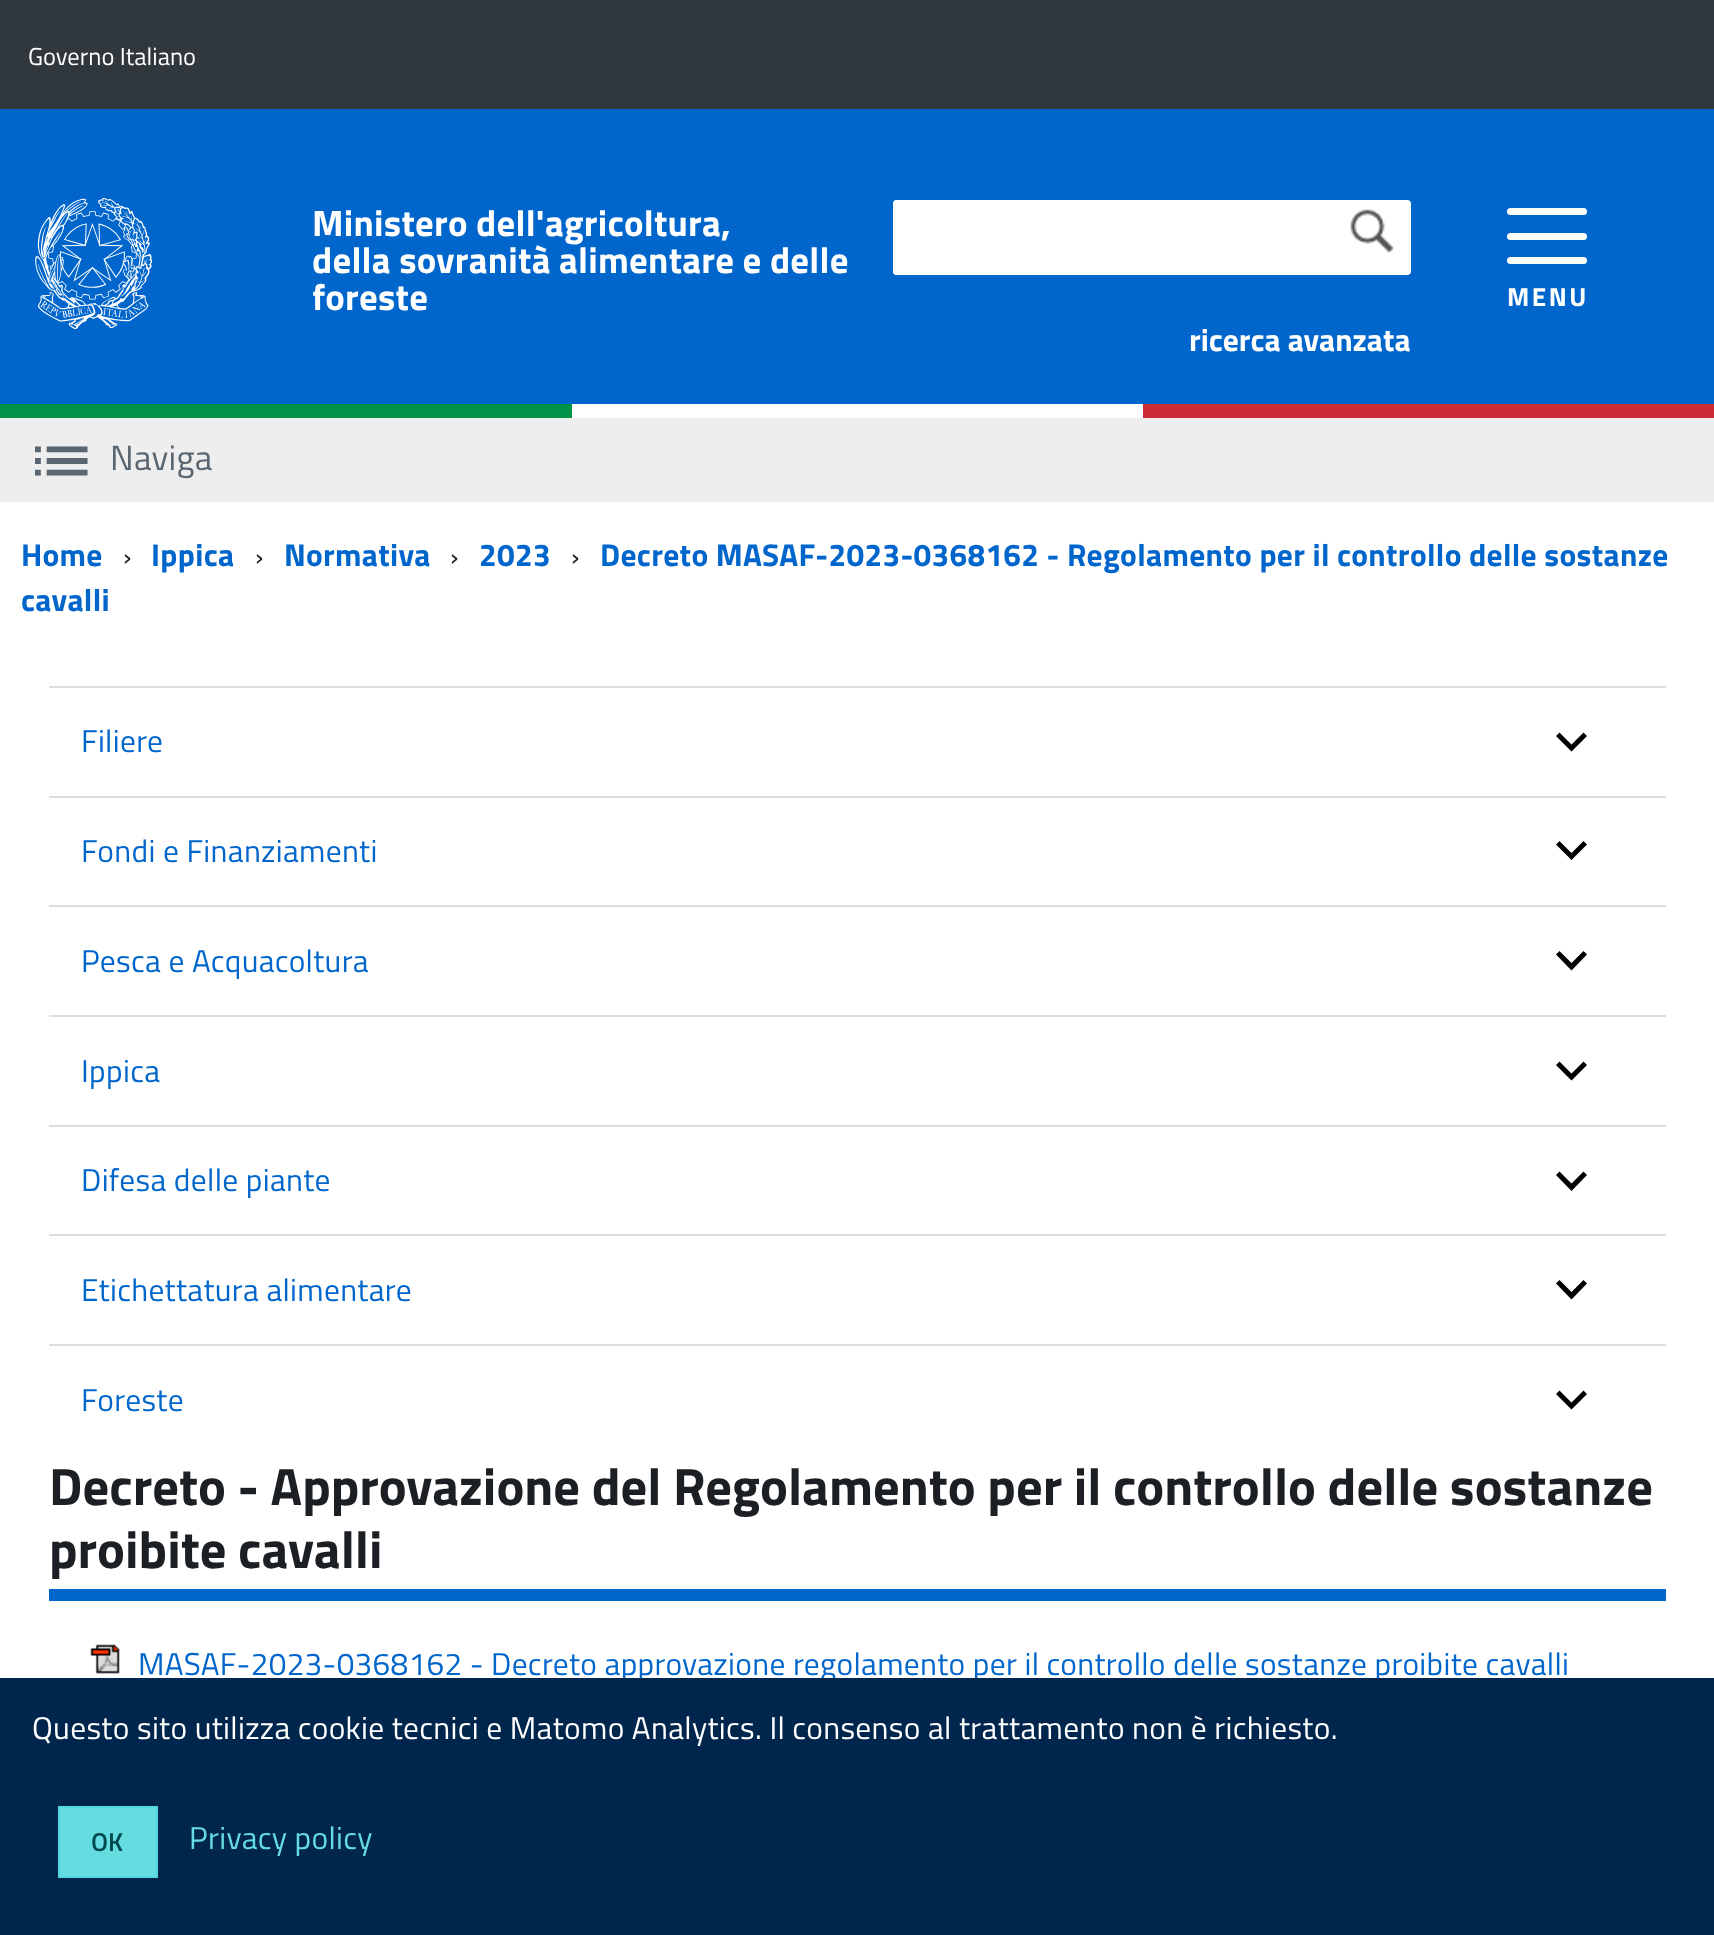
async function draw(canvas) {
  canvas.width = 1714
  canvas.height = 1935
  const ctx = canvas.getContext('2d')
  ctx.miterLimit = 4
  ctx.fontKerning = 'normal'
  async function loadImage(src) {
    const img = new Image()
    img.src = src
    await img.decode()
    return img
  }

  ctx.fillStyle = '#fff'
  ctx.fillRect(0, 0, 1714, 1935)
  ctx.fillStyle = '#30373d'
  ctx.fillRect(0, 0, 1714, 109)
  ctx.font = '24.5px Titillium Web'
  ctx.fillStyle = '#fff'
  ctx.fillText('Governo Italiano', 28, 65)
  ctx.fillStyle = '#06c'
  ctx.fillRect(0, 109, 1714, 295)
  ctx.drawImage(await loadImage('image0.png'), 35, 198, 117, 131)
  ctx.letterSpacing = '0.25px'
  ctx.font = 'bold 36.75px Titillium Web'
  ctx.fillStyle = '#fff'
  ctx.fillText('Ministero dell\'agricoltura,', 312, 236)
  ctx.fillText('della sovranità alimentare e delle', 312, 273)
  ctx.fillText('foreste', 312, 310)
  ctx.beginPath()
  ctx.roundRect(1507, 233, 80, 7, 3.5)
  ctx.fill()
  ctx.beginPath()
  ctx.roundRect(1507, 208, 80, 7, 3.5)
  ctx.fill()
  ctx.beginPath()
  ctx.roundRect(1507, 257, 80, 7, 3.5)
  ctx.fill()
  ctx.letterSpacing = '2.5px'
  ctx.font = 'bold 26px Titillium Web'
  ctx.fillText('MENU', 1507, 306)
  ctx.beginPath()
  ctx.roundRect(893, 200, 518, 75, 4)
  ctx.fill()
  ctx.beginPath()
  ctx.roundRect(893, 200, 511, 75, 4)
  ctx.fill()
  ctx.drawImage(await loadImage('image1.png'), 1350, 209, 44, 44)
  ctx.letterSpacing = '0px'
  ctx.font = 'bold 31.5px Titillium Web'
  ctx.fillText('ricerca avanzata', 1189, 351)
  ctx.fillStyle = '#009246'
  ctx.fillRect(0, 404, 572, 14)
  ctx.fillStyle = '#ce2b37'
  ctx.fillRect(1143, 404, 571, 14)
  ctx.fillStyle = '#eee'
  ctx.fillRect(0, 418, 1714, 84)
  ctx.letterSpacing = '0.25px'
  ctx.font = '52.5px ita'
  ctx.fillStyle = '#5a6772'
  ctx.fillText('≣', 35, 484)
  ctx.font = '35px Titillium Web'
  ctx.fillText('Naviga', 110, 470)
  ctx.letterSpacing = '0.32px'
  ctx.font = 'bold 31.5px Titillium Web'
  ctx.fillStyle = '#06c'
  ctx.fillText('Home', 21, 566)
  ctx.letterSpacing = '0px'
  ctx.font = '28px Titillium Web'
  ctx.fillStyle = '#1c2024'
  ctx.fillText('›', 123, 566)
  ctx.letterSpacing = '0.32px'
  ctx.font = 'bold 31.5px Titillium Web'
  ctx.fillStyle = '#06c'
  ctx.fillText('Ippica', 151, 566)
  ctx.letterSpacing = '0px'
  ctx.font = '28px Titillium Web'
  ctx.fillStyle = '#1c2024'
  ctx.fillText('›', 255, 566)
  ctx.letterSpacing = '0.32px'
  ctx.font = 'bold 31.5px Titillium Web'
  ctx.fillStyle = '#06c'
  ctx.fillText('Normativa', 284, 566)
  ctx.letterSpacing = '0px'
  ctx.font = '28px Titillium Web'
  ctx.fillStyle = '#1c2024'
  ctx.fillText('›', 450, 566)
  ctx.letterSpacing = '0.32px'
  ctx.font = 'bold 31.5px Titillium Web'
  ctx.fillStyle = '#06c'
  ctx.fillText('2023', 479, 566)
  ctx.letterSpacing = '0px'
  ctx.font = '28px Titillium Web'
  ctx.fillStyle = '#1c2024'
  ctx.fillText('›', 571, 566)
  ctx.letterSpacing = '0.32px'
  ctx.font = 'bold 31.5px Titillium Web'
  ctx.fillStyle = '#06c'
  ctx.fillText('Decreto MASAF-2023-0368162 - Regolamento per il controllo delle sostanze', 600, 566)
  ctx.fillText('cavalli', 21, 611)
  ctx.fillStyle = '#ddd'
  ctx.fillRect(49, 686, 1617, 2)
  ctx.font = '31.5px Titillium Web'
  ctx.fillStyle = '#06c'
  ctx.fillText('Filiere', 81, 752)
  ctx.fillStyle = '#000'
  ctx.beginPath()
  ctx.moveTo(1559.5, 732.5)
  ctx.lineTo(1556, 736)
  ctx.lineTo(1571.5, 751.5)
  ctx.lineTo(1587, 736)
  ctx.lineTo(1583.5, 732.5)
  ctx.lineTo(1571.5, 744.5)
  ctx.closePath()
  ctx.fill()
  ctx.fillStyle = '#ddd'
  ctx.fillRect(49, 796, 1617, 2)
  ctx.fillStyle = '#06c'
  ctx.fillText('Fondi e Finanziamenti', 81, 862)
  ctx.fillStyle = '#000'
  ctx.beginPath()
  ctx.moveTo(1559.5, 841)
  ctx.lineTo(1556, 844.5)
  ctx.lineTo(1571.5, 860)
  ctx.lineTo(1587, 844.5)
  ctx.lineTo(1583.5, 841)
  ctx.lineTo(1571.5, 853)
  ctx.closePath()
  ctx.fill()
  ctx.fillStyle = '#ddd'
  ctx.fillRect(49, 905, 1617, 2)
  ctx.fillStyle = '#06c'
  ctx.fillText('Pesca e Acquacoltura', 81, 972)
  ctx.fillStyle = '#000'
  ctx.beginPath()
  ctx.moveTo(1559.5, 951)
  ctx.lineTo(1556, 954.5)
  ctx.lineTo(1571.5, 970.5)
  ctx.lineTo(1587, 954.5)
  ctx.lineTo(1583.5, 951)
  ctx.lineTo(1571.5, 963)
  ctx.closePath()
  ctx.fill()
  ctx.fillStyle = '#ddd'
  ctx.fillRect(49, 1015, 1617, 2)
  ctx.fillStyle = '#06c'
  ctx.fillText('Ippica', 81, 1082)
  ctx.fillStyle = '#000'
  ctx.beginPath()
  ctx.moveTo(1559.5, 1061.5)
  ctx.lineTo(1556, 1065)
  ctx.lineTo(1571.5, 1080.5)
  ctx.lineTo(1587, 1065)
  ctx.lineTo(1583.5, 1061.5)
  ctx.lineTo(1571.5, 1073.5)
  ctx.closePath()
  ctx.fill()
  ctx.fillStyle = '#ddd'
  ctx.fillRect(49, 1125, 1617, 2)
  ctx.fillStyle = '#06c'
  ctx.fillText('Difesa delle piante', 81, 1191)
  ctx.fillStyle = '#000'
  ctx.beginPath()
  ctx.moveTo(1559.5, 1171.5)
  ctx.lineTo(1556, 1175)
  ctx.lineTo(1571.5, 1191)
  ctx.lineTo(1587, 1175)
  ctx.lineTo(1583.5, 1171.5)
  ctx.lineTo(1571.5, 1183.5)
  ctx.closePath()
  ctx.fill()
  ctx.fillStyle = '#ddd'
  ctx.fillRect(49, 1234, 1617, 2)
  ctx.fillStyle = '#06c'
  ctx.fillText('Etichettatura alimentare', 81, 1301)
  ctx.fillStyle = '#000'
  ctx.beginPath()
  ctx.moveTo(1559.5, 1280)
  ctx.lineTo(1556, 1283.5)
  ctx.lineTo(1571.5, 1299.5)
  ctx.lineTo(1587, 1283.5)
  ctx.lineTo(1583.5, 1280)
  ctx.lineTo(1571.5, 1292)
  ctx.closePath()
  ctx.fill()
  ctx.fillStyle = '#ddd'
  ctx.fillRect(49, 1344, 1617, 2)
  ctx.fillStyle = '#06c'
  ctx.fillText('Foreste', 81, 1411)
  ctx.fillStyle = '#000'
  ctx.beginPath()
  ctx.moveTo(1559.5, 1390.5)
  ctx.lineTo(1556, 1394)
  ctx.lineTo(1571.5, 1409.5)
  ctx.lineTo(1587, 1394)
  ctx.lineTo(1583.5, 1390.5)
  ctx.lineTo(1571.5, 1402.5)
  ctx.closePath()
  ctx.fill()
  ctx.fillStyle = '#06c'
  ctx.fillRect(49, 1589, 1617, 12)
  ctx.letterSpacing = '0px'
  ctx.font = 'bold 52.5px Titillium Web'
  ctx.fillStyle = '#1c2024'
  ctx.fillText('Decreto - Approvazione del Regolamento per il controllo delle sostanze', 49, 1505)
  ctx.fillText('proibite cavalli', 49, 1568)
  ctx.drawImage(await loadImage('image2.png'), 90, 1644, 30, 30)
  ctx.letterSpacing = '0.32px'
  ctx.font = '31.5px Titillium Web'
  ctx.fillStyle = '#06c'
  ctx.fillText('MASAF-2023-0368162 - Decreto approvazione regolamento per il controllo delle sostanze proibite cavalli', 138, 1675)
  ctx.fillStyle = '#00264d'
  ctx.fillRect(0, 1678, 1714, 257)
  ctx.fillStyle = '#fff'
  ctx.fillText('Questo sito utilizza cookie tecnici e Matomo Analytics. Il consenso al trattamento non è richiesto.', 32, 1739)
  ctx.fillStyle = '#65dde0'
  ctx.beginPath()
  ctx.rect(59, 1807, 98, 70)
  ctx.fill()
  ctx.strokeStyle = '#50d8dc'
  ctx.lineWidth = 2
  ctx.stroke()
  ctx.letterSpacing = '0px'
  ctx.font = '600 26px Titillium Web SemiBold'
  ctx.fillStyle = '#004a4d'
  ctx.fillText('OK', 91, 1851)
  ctx.letterSpacing = '0.32px'
  ctx.font = '31.5px Titillium Web'
  ctx.fillStyle = '#65dcdf'
  ctx.fillText('Privacy policy', 189, 1849)
}

draw(document.querySelector('canvas'))
